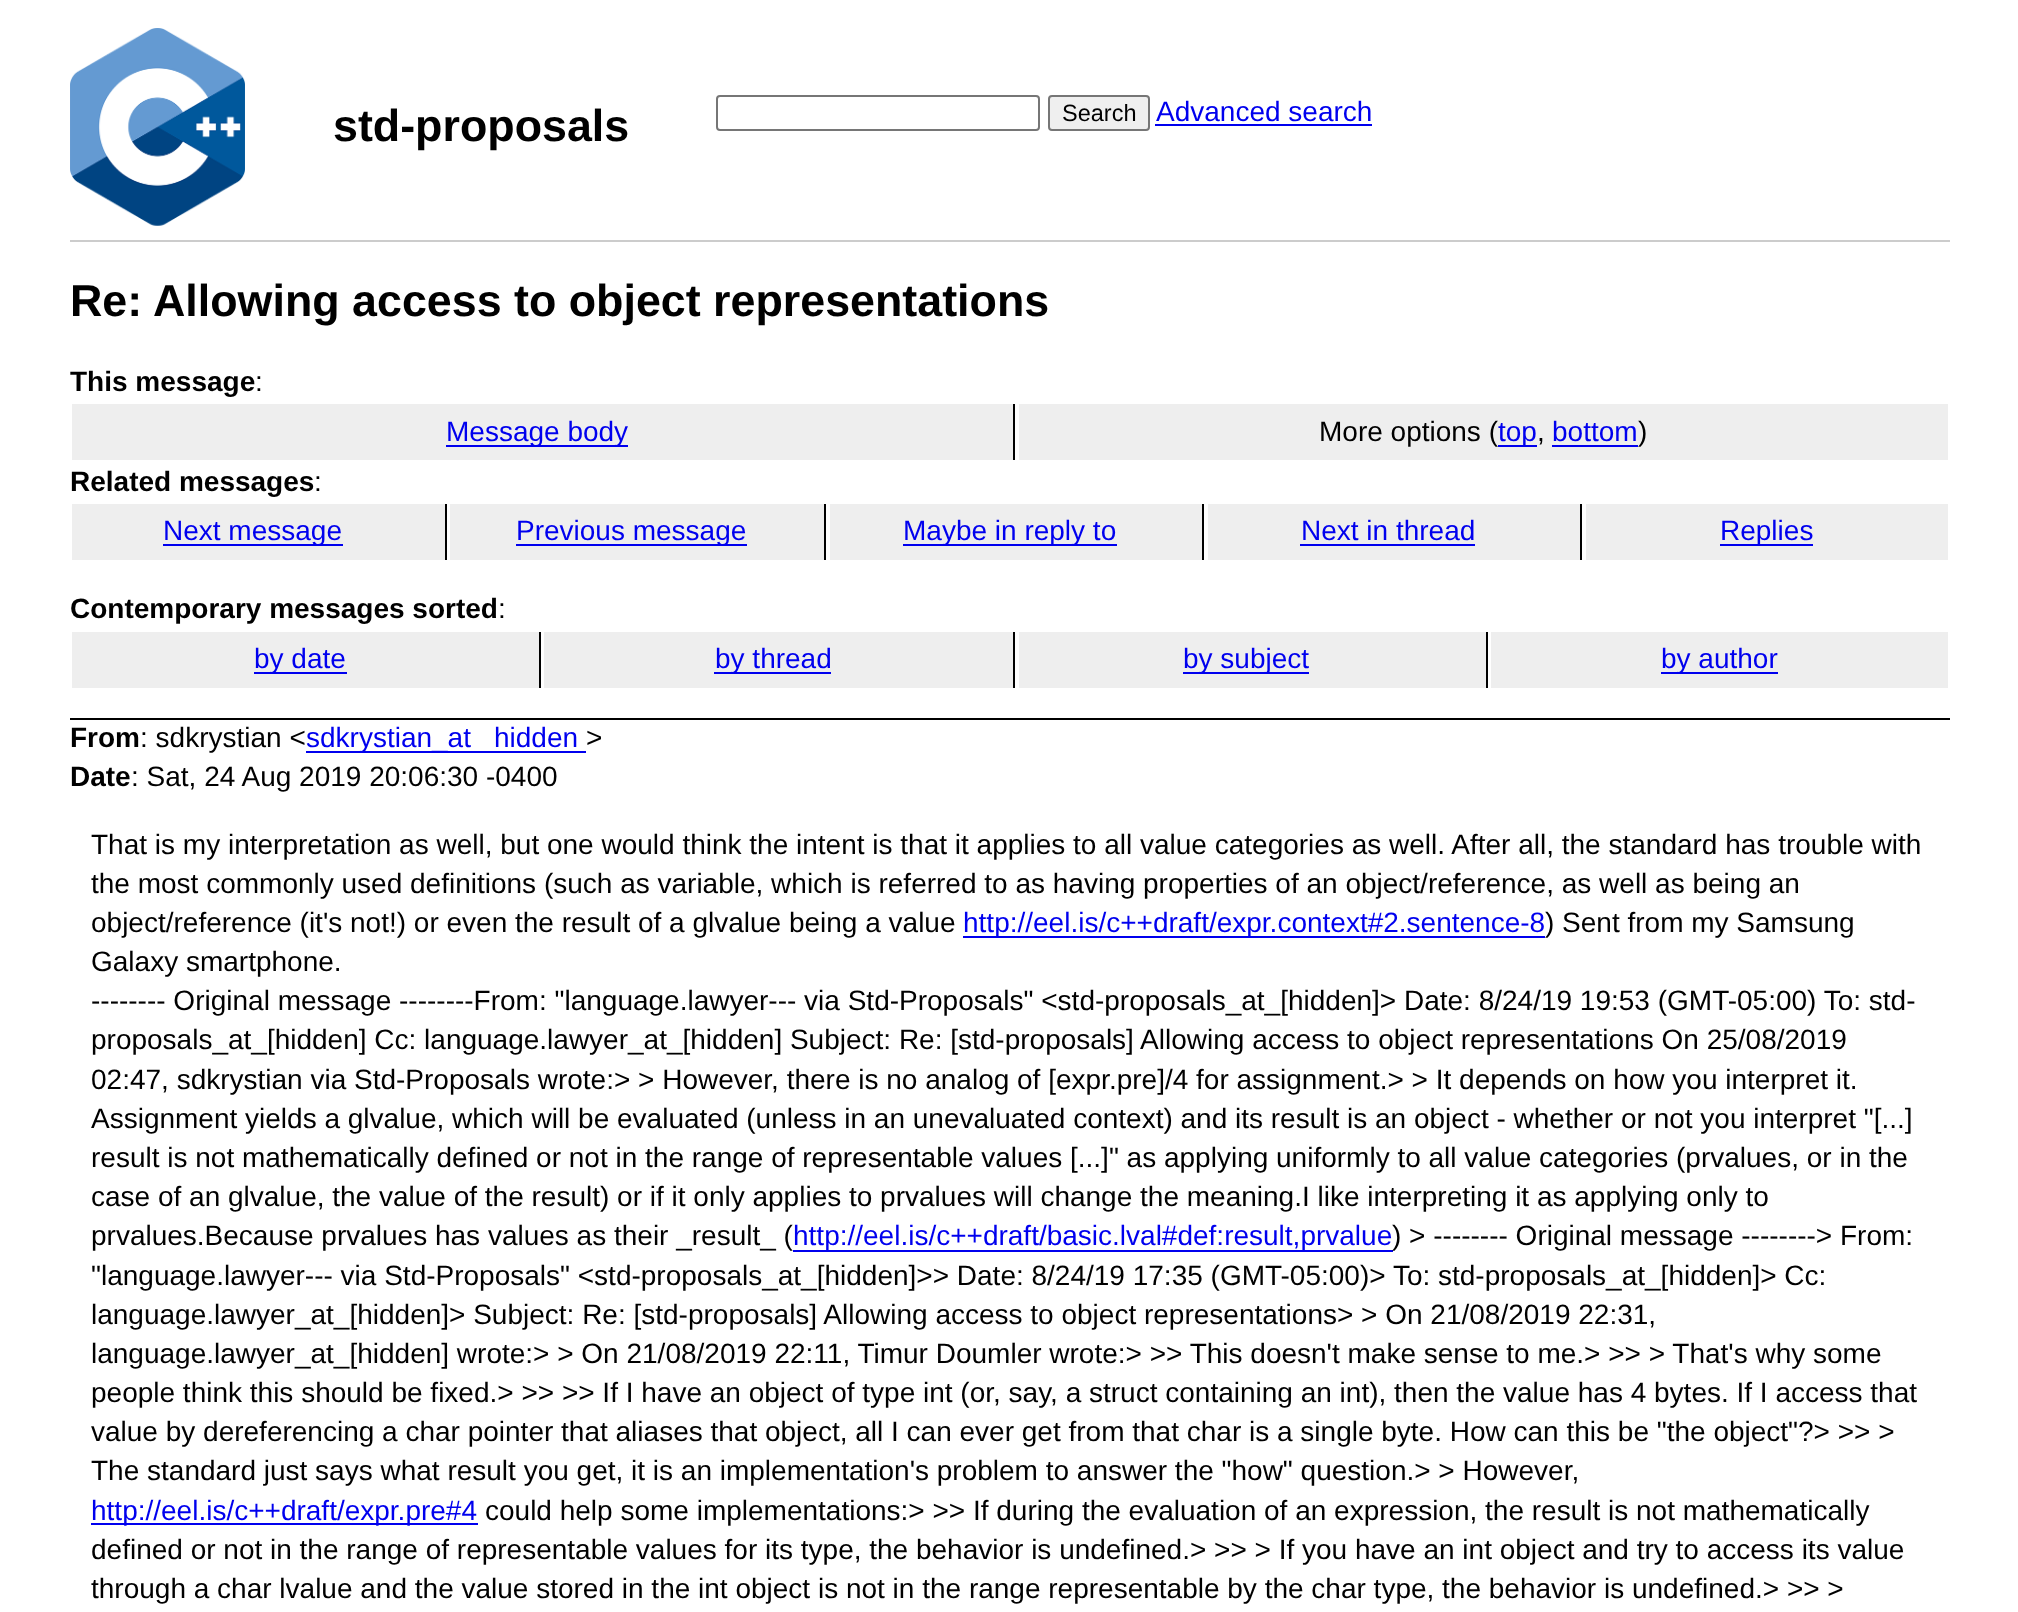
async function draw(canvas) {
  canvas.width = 2018
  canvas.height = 1612
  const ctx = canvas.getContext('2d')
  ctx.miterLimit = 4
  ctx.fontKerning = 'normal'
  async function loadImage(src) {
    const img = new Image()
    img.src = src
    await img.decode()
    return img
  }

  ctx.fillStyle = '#fff'
  ctx.fillRect(0, 0, 2018, 1612)
  ctx.drawImage(await loadImage('image0.png'), 70, 28, 175, 198)
  ctx.font = 'bold 44.8px Liberation Sans'
  ctx.fillStyle = '#000'
  ctx.fillText('std-proposals', 333, 141)
  ctx.beginPath()
  ctx.roundRect(717, 96, 322, 34, 3)
  ctx.strokeStyle = '#767676'
  ctx.lineWidth = 2
  ctx.stroke()
  ctx.fillStyle = '#efefef'
  ctx.beginPath()
  ctx.roundRect(1049, 96, 100, 34, 3)
  ctx.fill()
  ctx.stroke()
  ctx.font = '23.5px Liberation Sans'
  ctx.fillStyle = '#000'
  ctx.fillText('Search', 1062, 121)
  ctx.font = '28px Liberation Sans'
  ctx.fillStyle = '#00e'
  ctx.fillText('Advanced search', 1156, 121)
  ctx.fillRect(1155, 124, 217, 2)
  ctx.fillStyle = '#ccc'
  ctx.fillRect(70, 240, 1880, 2)
  ctx.font = 'bold 44.8px Liberation Sans'
  ctx.fillStyle = '#000'
  ctx.fillText('Re:', 70, 316)
  ctx.fillText('Allowing access to object representations', 153, 316)
  ctx.font = 'bold 28px Liberation Sans'
  ctx.fillText('This message', 70, 391)
  ctx.font = '28px Liberation Sans'
  ctx.fillText(':', 255, 391)
  ctx.fillStyle = '#eee'
  ctx.fillRect(72, 404, 941, 56)
  ctx.fillStyle = '#000'
  ctx.fillRect(1013, 404, 2, 56)
  ctx.fillStyle = '#00e'
  ctx.fillRect(446, 445, 182, 2)
  ctx.fillText('Message body', 446, 441)
  ctx.fillStyle = '#eee'
  ctx.fillRect(1019, 404, 929, 56)
  ctx.fillStyle = '#000'
  ctx.fillText('More options (', 1319, 441)
  ctx.fillStyle = '#00e'
  ctx.fillRect(1498, 445, 39, 2)
  ctx.fillText('top', 1498, 441)
  ctx.fillStyle = '#000'
  ctx.fillText(',', 1537, 441)
  ctx.fillStyle = '#00e'
  ctx.fillText('bottom', 1552, 441)
  ctx.fillRect(1552, 445, 86, 2)
  ctx.fillStyle = '#000'
  ctx.fillText(')', 1638, 441)
  ctx.font = 'bold 28px Liberation Sans'
  ctx.fillText('Related messages', 70, 491)
  ctx.font = '28px Liberation Sans'
  ctx.fillText(':', 314, 491)
  ctx.fillStyle = '#eee'
  ctx.fillRect(72, 504, 373, 56)
  ctx.fillStyle = '#000'
  ctx.fillRect(445, 504, 2, 56)
  ctx.fillStyle = '#00e'
  ctx.fillRect(163, 544, 180, 2)
  ctx.fillText('Next message', 163, 540)
  ctx.fillStyle = '#eee'
  ctx.fillRect(450, 504, 374, 56)
  ctx.fillStyle = '#000'
  ctx.fillRect(824, 504, 2, 56)
  ctx.fillStyle = '#00e'
  ctx.fillRect(516, 544, 231, 2)
  ctx.fillText('Previous message', 516, 540)
  ctx.fillStyle = '#eee'
  ctx.fillRect(830, 504, 372, 56)
  ctx.fillStyle = '#000'
  ctx.fillRect(1202, 504, 2, 56)
  ctx.fillStyle = '#00e'
  ctx.fillRect(903, 544, 214, 2)
  ctx.fillText('Maybe in reply to', 903, 540)
  ctx.fillStyle = '#eee'
  ctx.fillRect(1208, 504, 372, 56)
  ctx.fillStyle = '#000'
  ctx.fillRect(1580, 504, 2, 56)
  ctx.fillStyle = '#00e'
  ctx.fillText('Next in thread', 1301, 540)
  ctx.fillRect(1300, 544, 175, 2)
  ctx.fillStyle = '#eee'
  ctx.fillRect(1586, 504, 362, 56)
  ctx.fillStyle = '#00e'
  ctx.fillRect(1720, 544, 93, 2)
  ctx.fillText('Replies', 1720, 540)
  ctx.font = 'bold 28px Liberation Sans'
  ctx.fillStyle = '#000'
  ctx.fillText('Contemporary messages sorted', 70, 618)
  ctx.font = '28px Liberation Sans'
  ctx.fillText(':', 498, 618)
  ctx.fillStyle = '#eee'
  ctx.fillRect(72, 632, 467, 56)
  ctx.fillStyle = '#000'
  ctx.fillRect(539, 632, 2, 56)
  ctx.fillStyle = '#00e'
  ctx.fillRect(254, 672, 93, 2)
  ctx.fillText('by date', 254, 668)
  ctx.fillStyle = '#eee'
  ctx.fillRect(544, 632, 469, 56)
  ctx.fillStyle = '#000'
  ctx.fillRect(1013, 632, 2, 56)
  ctx.fillStyle = '#00e'
  ctx.fillRect(714, 672, 117, 2)
  ctx.fillText('by thread', 715, 668)
  ctx.fillStyle = '#eee'
  ctx.fillRect(1019, 632, 467, 56)
  ctx.fillStyle = '#000'
  ctx.fillRect(1486, 632, 2, 56)
  ctx.fillStyle = '#00e'
  ctx.fillRect(1183, 672, 126, 2)
  ctx.fillText('by subject', 1183, 668)
  ctx.fillStyle = '#eee'
  ctx.fillRect(1491, 632, 457, 56)
  ctx.fillStyle = '#00e'
  ctx.fillRect(1661, 672, 117, 2)
  ctx.fillText('by author', 1661, 668)
  ctx.fillStyle = '#000'
  ctx.fillRect(70, 718, 1880, 2)
  ctx.font = 'bold 28px Liberation Sans'
  ctx.fillText('From', 70, 747)
  ctx.font = '28px Liberation Sans'
  ctx.fillText(': sdkrystian <', 140, 747)
  ctx.fillStyle = '#00e'
  ctx.fillRect(306, 751, 280, 2)
  ctx.fillText('sdkrystian_at', 306, 747)
  ctx.fillText('hidden', 494, 747)
  ctx.fillStyle = '#000'
  ctx.fillText('>', 586, 747)
  ctx.font = 'bold 28px Liberation Sans'
  ctx.fillText('Date', 70, 786)
  ctx.font = '28px Liberation Sans'
  ctx.fillText(': Sat, 24 Aug 2019 20:06:30 -0400', 131, 786)
  ctx.fillText('That is my interpretation as well, but one would think the intent is that it applies to all value categories as well. After all, the standard has trouble with', 91, 854)
  ctx.fillText('the most commonly used definitions (such as variable, which is referred to as having properties of an object/reference, as well as being an', 91, 893)
  ctx.fillText('object/reference (it\'s not!) or even the result of a glvalue being a value', 91, 932)
  ctx.fillStyle = '#00e'
  ctx.fillRect(963, 936, 582, 2)
  ctx.fillText('http://eel.is/c++draft/expr.context#2.sentence-8', 963, 932)
  ctx.fillStyle = '#000'
  ctx.fillText(') Sent from my Samsung', 1545, 932)
  ctx.fillText('Galaxy smartphone.', 91, 971)
  ctx.fillText('-------- Original message --------From: "language.lawyer--- via Std-Proposals" <std-proposals_at_[hidden]> Date: 8/24/19 19:53 (GMT-05:00) To: std-', 91, 1010)
  ctx.fillText('proposals_at_[hidden] Cc: language.lawyer_at_[hidden] Subject: Re: [std-proposals] Allowing access to object representations On 25/08/2019', 91, 1049)
  ctx.fillText('02:47, sdkrystian via Std-Proposals wrote:> > However, there is no analog of [expr.pre]/4 for assignment.> > It depends on how you interpret it.', 91, 1089)
  ctx.fillText('Assignment yields a glvalue, which will be evaluated (unless in an unevaluated context) and its result is an object - whether or not you interpret "[...]', 91, 1128)
  ctx.fillText('result is not mathematically defined or not in the range of representable values [...]" as applying uniformly to all value categories (prvalues, or in the', 91, 1167)
  ctx.fillText('case of an glvalue, the value of the result) or if it only applies to prvalues will change the meaning.I like interpreting it as applying only to', 91, 1206)
  ctx.fillText('prvalues.Because prvalues has values as their _result_ (', 91, 1245)
  ctx.fillStyle = '#00e'
  ctx.fillRect(793, 1250, 600, 2)
  ctx.fillText('http://eel.is/c++draft/basic.lval#def:result,prvalue', 793, 1245)
  ctx.fillStyle = '#000'
  ctx.fillText(') > -------- Original message --------> From:', 1392, 1245)
  ctx.fillText('"language.lawyer--- via Std-Proposals" <std-proposals_at_[hidden]>> Date: 8/24/19 17:35 (GMT-05:00)> To: std-proposals_at_[hidden]> Cc:', 91, 1285)
  ctx.fillText('language.lawyer_at_[hidden]> Subject: Re: [std-proposals] Allowing access to object representations> > On 21/08/2019 22:31,', 91, 1324)
  ctx.fillText('language.lawyer_at_[hidden] wrote:> > On 21/08/2019 22:11, Timur Doumler wrote:> >> This doesn\'t make sense to me.> >> > That\'s why some', 91, 1363)
  ctx.fillText('people think this should be fixed.> >> >> If I have an object of type int (or, say, a struct containing an int), then the value has 4 bytes. If I access that', 91, 1402)
  ctx.fillText('value by dereferencing a char pointer that aliases that object, all I can ever get from that char is a single byte. How can this be "the object"?> >> >', 91, 1441)
  ctx.fillText('The standard just says what result you get, it is an implementation\'s problem to answer the "how" question.> > However,', 91, 1480)
  ctx.fillStyle = '#00e'
  ctx.fillRect(91, 1523, 387, 2)
  ctx.fillText('http://eel.is/c++draft/expr.pre#4', 91, 1520)
  ctx.fillStyle = '#000'
  ctx.fillText('could help some implementations:> >> If during the evaluation of an expression, the result is not mathematically', 485, 1520)
  ctx.fillText('defined or not in the range of representable values for its type, the behavior is undefined.> >> > If you have an int object and try to access its value', 91, 1559)
  ctx.fillText('through a char lvalue and the value stored in the int object is not in the range representable by the char type, the behavior is undefined.> >> >', 91, 1598)
}

draw(document.querySelector('canvas'))
